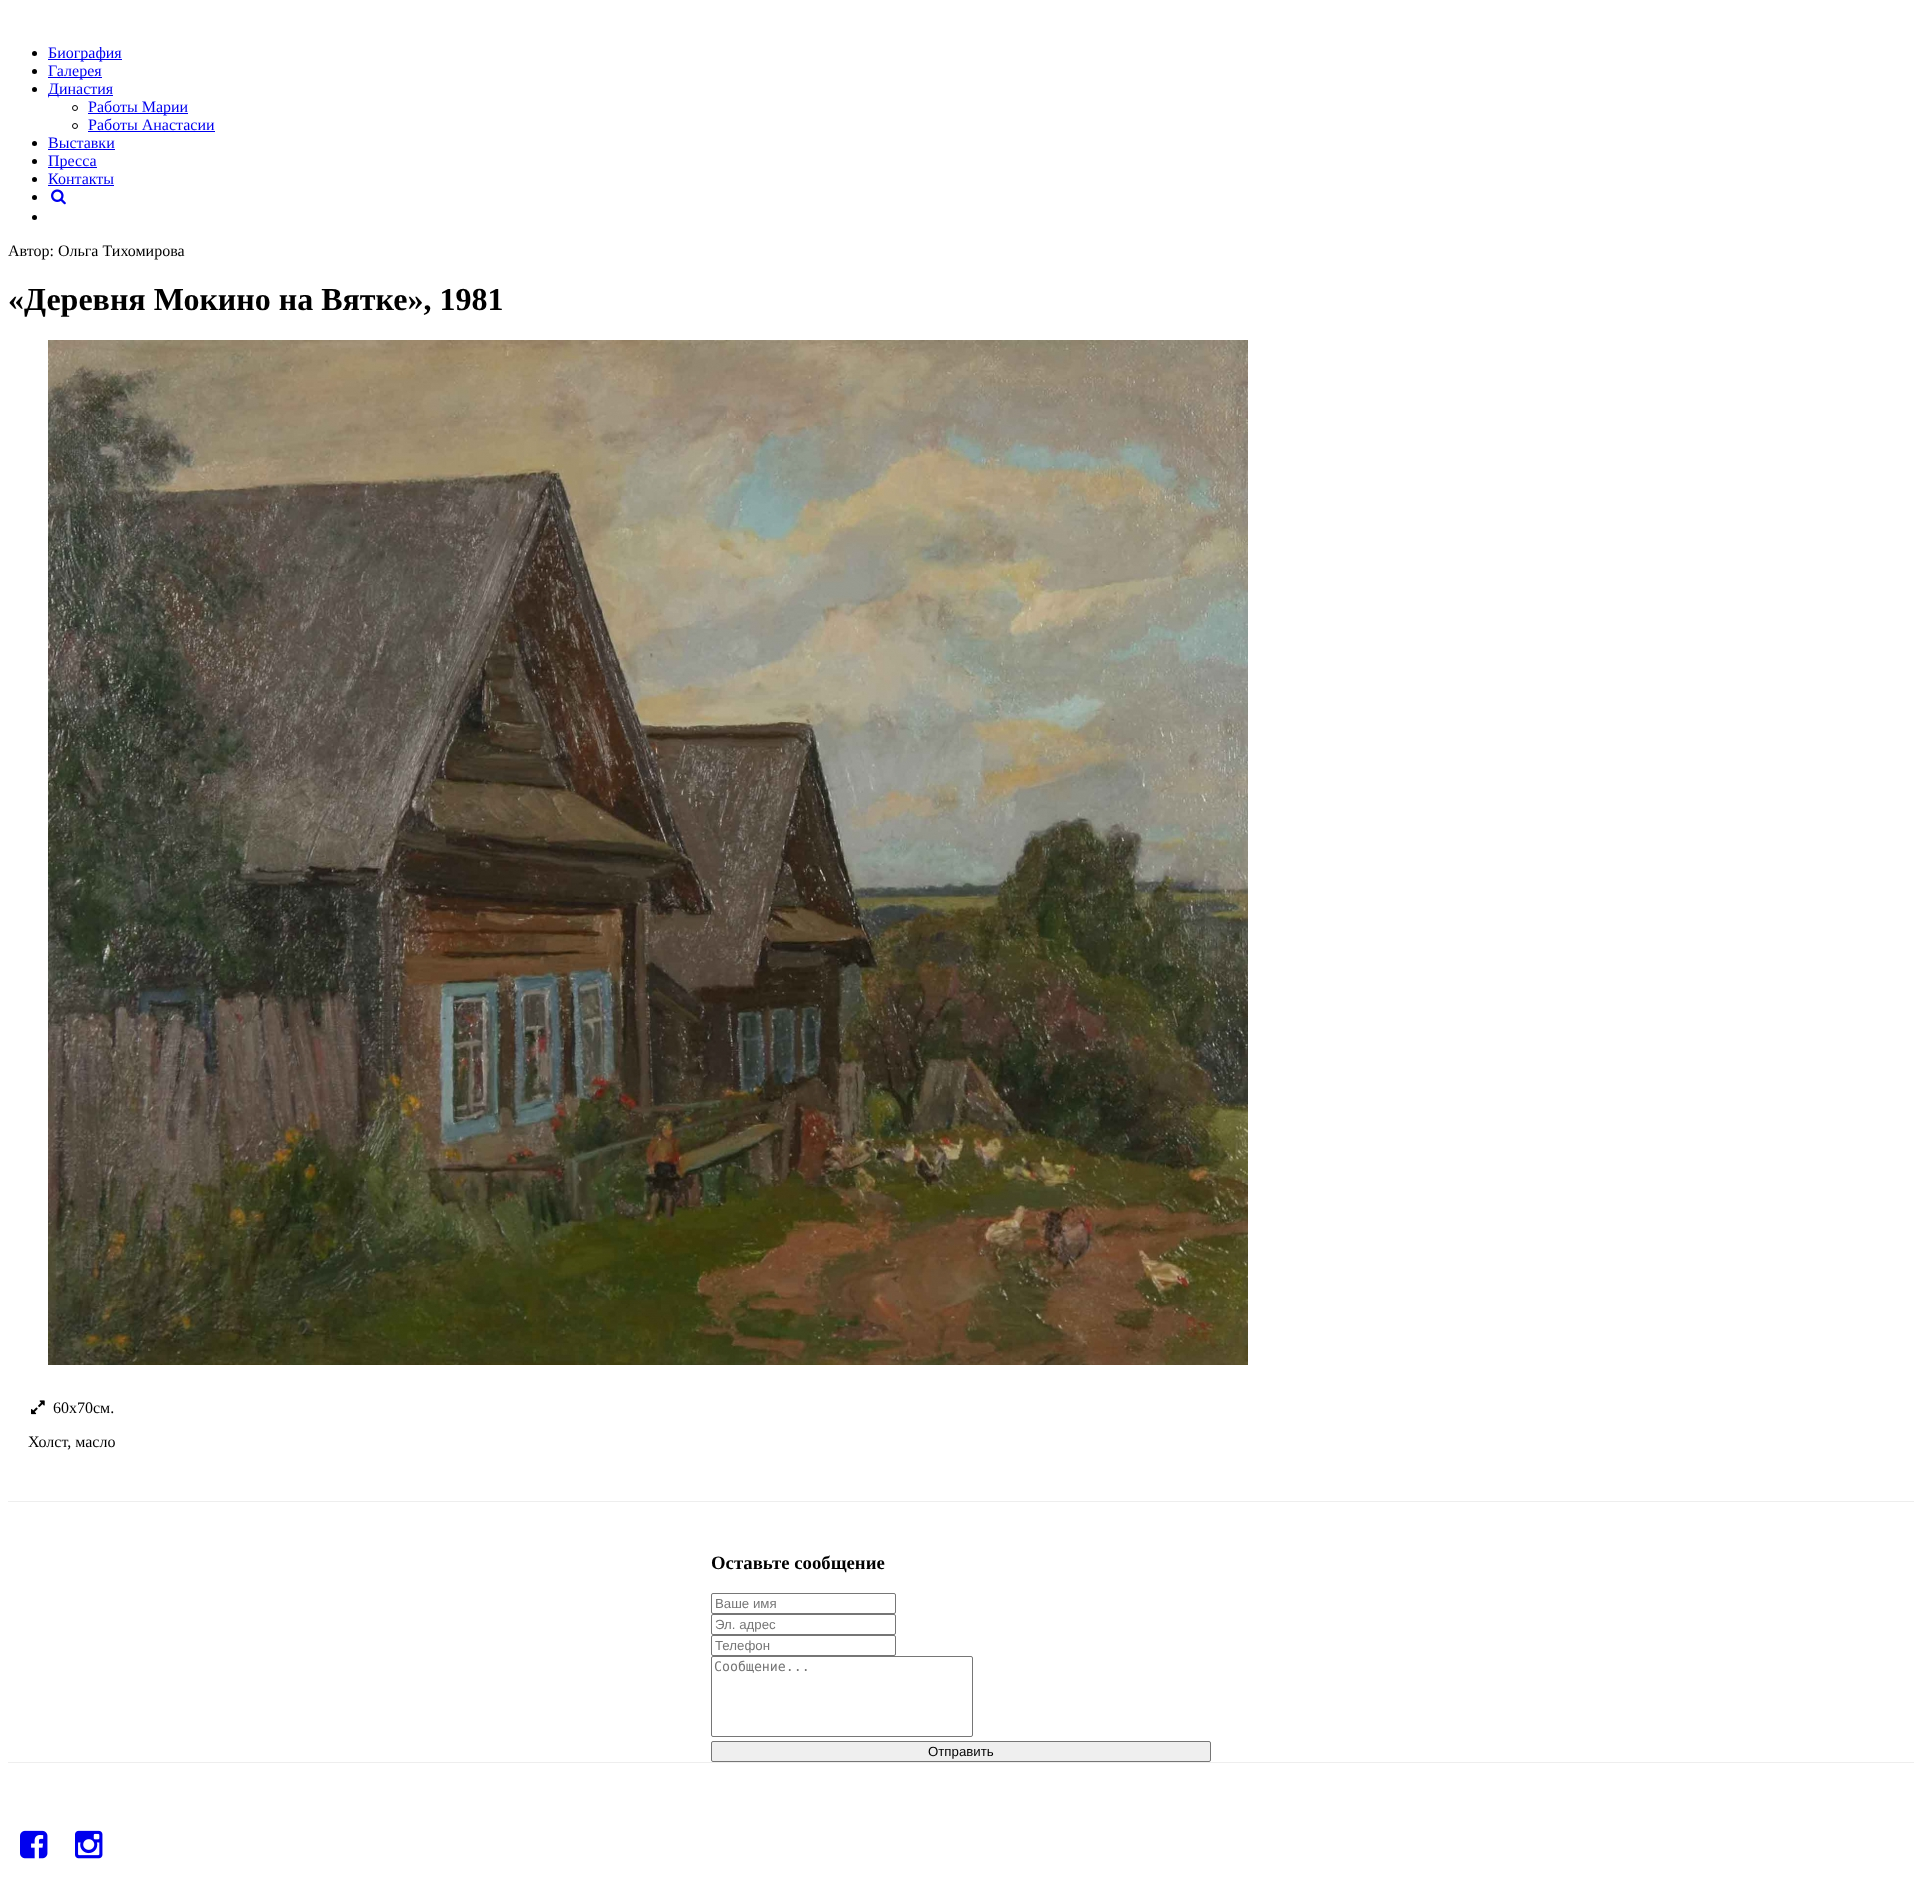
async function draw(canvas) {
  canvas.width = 1922
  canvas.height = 1879
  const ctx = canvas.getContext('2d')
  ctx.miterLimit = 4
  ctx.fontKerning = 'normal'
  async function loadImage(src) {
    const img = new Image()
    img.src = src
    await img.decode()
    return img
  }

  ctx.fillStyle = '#fff'
  ctx.fillRect(0, 0, 1922, 1879)
  ctx.fillStyle = '#000'
  ctx.beginPath()
  ctx.arc(34.5, 53.5, 2.5, 0, 2 * Math.PI)
  ctx.fill()
  ctx.fillStyle = '#00e'
  ctx.fillRect(48, 59, 74, 1)
  ctx.font = '16px Liberation Serif'
  ctx.fillText('Биография', 48, 58)
  ctx.fillStyle = '#000'
  ctx.beginPath()
  ctx.arc(34.5, 71.5, 2.5, 0, 2 * Math.PI)
  ctx.fill()
  ctx.fillStyle = '#00e'
  ctx.fillRect(48, 77, 54, 1)
  ctx.fillText('Галерея', 48, 76)
  ctx.fillStyle = '#000'
  ctx.beginPath()
  ctx.arc(34.5, 89.5, 2.5, 0, 2 * Math.PI)
  ctx.fill()
  ctx.fillStyle = '#00e'
  ctx.fillRect(48, 95, 65, 1)
  ctx.fillText('Династия', 48, 94)
  ctx.beginPath()
  ctx.arc(75, 108, 2.5, 0, 2 * Math.PI)
  ctx.strokeStyle = '#000'
  ctx.stroke()
  ctx.fillRect(88, 113, 100, 1)
  ctx.fillText('Работы Марии', 88, 112)
  ctx.beginPath()
  ctx.arc(75, 126, 2.5, 0, 2 * Math.PI)
  ctx.stroke()
  ctx.fillText('Работы Анастасии', 88, 130)
  ctx.fillRect(88, 131, 127, 1)
  ctx.fillStyle = '#000'
  ctx.beginPath()
  ctx.arc(34.5, 143.5, 2.5, 0, 2 * Math.PI)
  ctx.fill()
  ctx.fillStyle = '#00e'
  ctx.fillText('Выставки', 48, 148)
  ctx.fillRect(48, 149, 67, 1)
  ctx.fillStyle = '#000'
  ctx.beginPath()
  ctx.arc(34.5, 161.5, 2.5, 0, 2 * Math.PI)
  ctx.fill()
  ctx.fillStyle = '#00e'
  ctx.fillRect(48, 167, 49, 1)
  ctx.fillText('Пресса', 48, 166)
  ctx.fillStyle = '#000'
  ctx.beginPath()
  ctx.arc(34.5, 179.5, 2.5, 0, 2 * Math.PI)
  ctx.fill()
  ctx.fillStyle = '#00e'
  ctx.fillText('Контакты', 48, 184)
  ctx.fillRect(48, 185, 66, 1)
  ctx.fillStyle = '#000'
  ctx.beginPath()
  ctx.arc(34.5, 197.5, 2.5, 0, 2 * Math.PI)
  ctx.fill()
  ctx.drawImage(await loadImage('image0.png'), 51, 189, 15, 16)
  ctx.beginPath()
  ctx.arc(34.5, 217.5, 2.5, 0, 2 * Math.PI)
  ctx.fill()
  ctx.fillText('Автор: Ольга Тихомирова', 8, 256)
  ctx.font = 'bold 32px Liberation Serif'
  ctx.fillText('«Деревня Мокино на Вятке», 1981', 8, 310)
  ctx.drawImage(await loadImage('image1.png'), 48, 340, 1200, 1025)
  ctx.drawImage(await loadImage('image2.png'), 31, 1400, 14, 15)
  ctx.font = '16px Liberation Serif'
  ctx.fillText('60х70см.', 53, 1413)
  ctx.fillText('Холст, масло', 28, 1447)
  ctx.fillStyle = '#eee'
  ctx.fillRect(8, 1501, 1906, 1)
  ctx.font = 'bold 18.75px Liberation Serif'
  ctx.fillStyle = '#000'
  ctx.fillText('Оставьте сообщение', 711, 1569)
  ctx.beginPath()
  ctx.roundRect(711.5, 1593.5, 184, 20, 1.5)
  ctx.strokeStyle = '#767676'
  ctx.stroke()
  ctx.font = '13.25px Liberation Sans'
  ctx.fillStyle = '#757575'
  ctx.fillText('Ваше имя', 715, 1608)
  ctx.beginPath()
  ctx.roundRect(711.5, 1614.5, 184, 20, 1.5)
  ctx.stroke()
  ctx.fillText('Эл. адрес', 715, 1629)
  ctx.beginPath()
  ctx.roundRect(711.5, 1635.5, 184, 20, 1.5)
  ctx.stroke()
  ctx.fillText('Телефон', 715, 1650)
  ctx.beginPath()
  ctx.roundRect(711.5, 1656.5, 261, 80, 1.5)
  ctx.stroke()
  ctx.font = '13.25px DejaVu Sans Mono'
  ctx.fillText('Сообщение...', 714, 1671)
  ctx.fillStyle = '#efefef'
  ctx.beginPath()
  ctx.roundRect(711.5, 1741.5, 499, 20, 1.5)
  ctx.fill()
  ctx.stroke()
  ctx.font = '13.25px Liberation Sans'
  ctx.fillStyle = '#000'
  ctx.fillText('Отправить', 928, 1756)
  ctx.fillStyle = '#eee'
  ctx.fillRect(8, 1762, 1906, 1)
  ctx.drawImage(await loadImage('image3.png'), 20, 1830, 28, 29)
  ctx.drawImage(await loadImage('image4.png'), 75, 1830, 28, 29)
}

draw(document.querySelector('canvas'))
